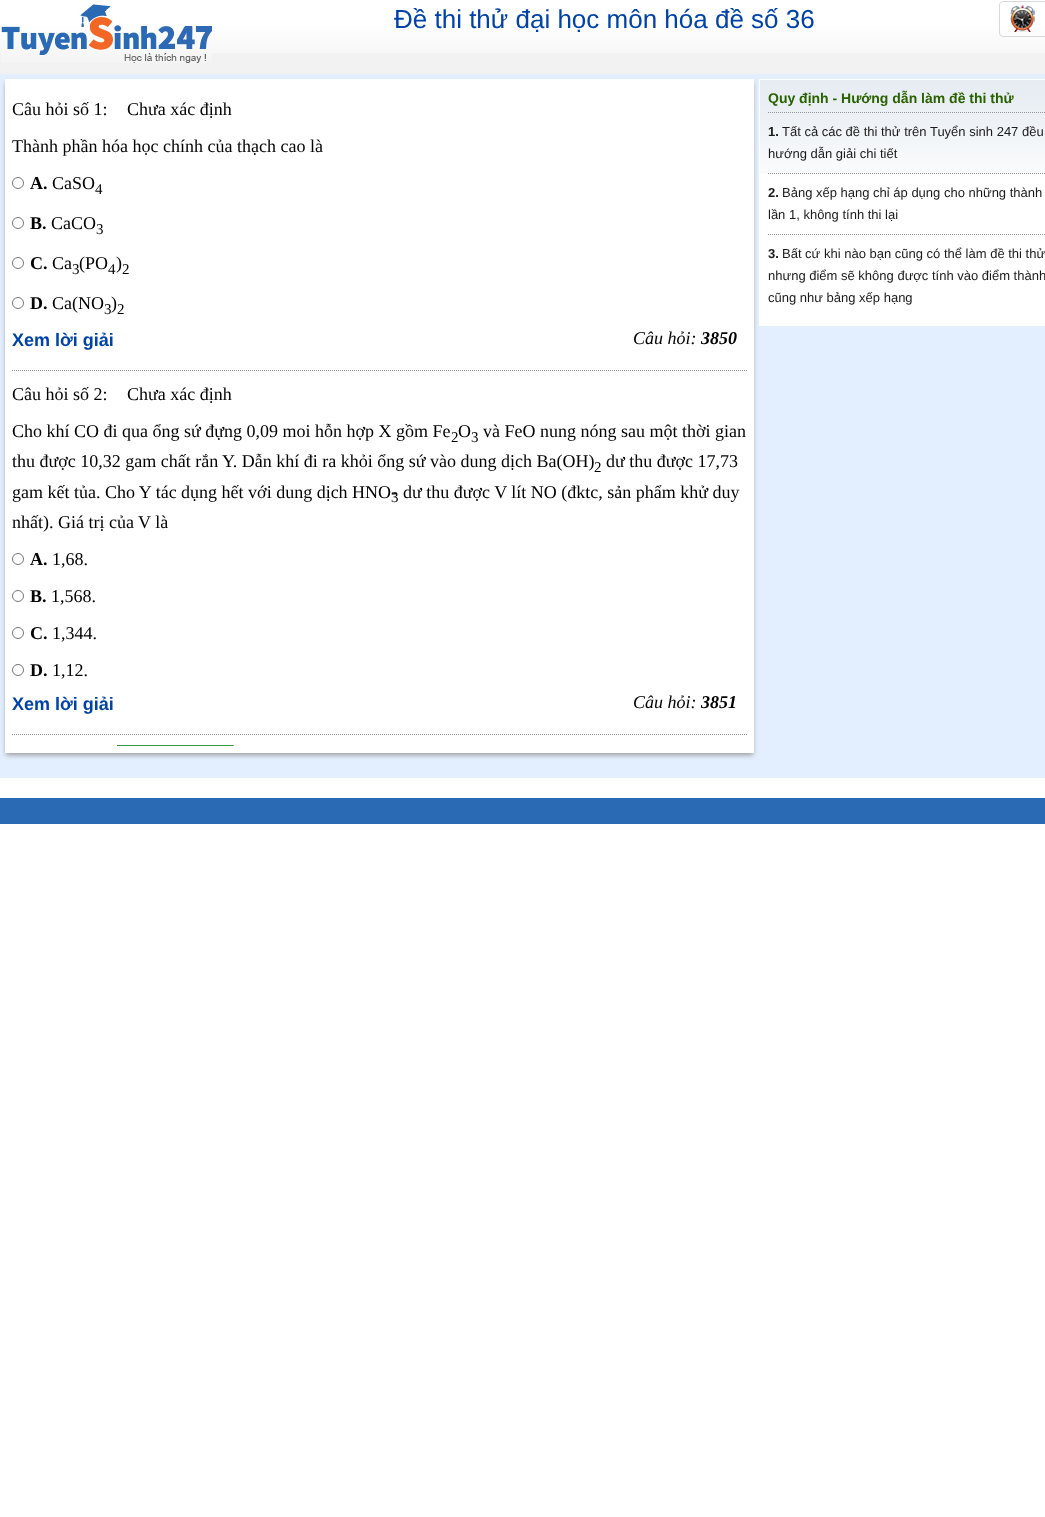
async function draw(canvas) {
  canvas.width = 1045
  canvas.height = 1517
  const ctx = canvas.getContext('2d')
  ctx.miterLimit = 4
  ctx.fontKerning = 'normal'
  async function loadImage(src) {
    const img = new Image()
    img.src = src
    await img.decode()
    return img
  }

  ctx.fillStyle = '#fff'
  ctx.fillRect(0, 0, 1045, 1517)
  ctx.fillStyle = '#f2f2f2'
  ctx.fillRect(0, 53, 1045, 21)
  ctx.drawImage(await loadImage('image0.png'), 0, 0, 1045, 53)
  ctx.drawImage(await loadImage('image1.png'), 1, 4, 211, 59)
  ctx.font = '26px Liberation Sans'
  ctx.fillStyle = '#0043a8'
  ctx.fillText('Đề thi thử đại học môn hóa đề số 36', 394, 28)
  ctx.beginPath()
  ctx.roundRect(999.5, 1.5, 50, 35, 3.5)
  ctx.strokeStyle = '#d9d9d9'
  ctx.stroke()
  ctx.drawImage(await loadImage('image2.png'), 1010, 5, 25, 27)
  ctx.fillStyle = '#e3eeff'
  ctx.fillRect(0, 74, 1045, 704)
  ctx.fillStyle = '#999'
  ctx.filter = 'blur(2.5px)'
  ctx.beginPath()
  ctx.rect(6, 83, 747, 672)
  ctx.fill()
  ctx.filter = 'none'
  ctx.fillStyle = '#fff'
  ctx.fillRect(5, 79, 749, 674)
  ctx.beginPath()
  ctx.moveTo(12, 370.5)
  ctx.lineTo(747, 370.5)
  ctx.strokeStyle = '#949495'
  ctx.setLineDash([1, 1])
  ctx.stroke()
  ctx.font = '18px Liberation Serif'
  ctx.fillStyle = '#000'
  ctx.fillText('Câu hỏi số 1:', 12, 115)
  ctx.fillText('Chưa xác định', 127, 115)
  ctx.fillText('Thành phần hóa học chính của thạch cao là', 12, 152)
  ctx.beginPath()
  ctx.arc(18, 183, 5.5, 0, 2 * Math.PI)
  ctx.strokeStyle = '#767676'
  ctx.setLineDash([])
  ctx.stroke()
  ctx.font = 'bold 18px Liberation Serif'
  ctx.fillText('A.', 30, 189)
  ctx.font = '18px Liberation Serif'
  ctx.fillText('CaSO', 52, 189)
  ctx.font = '15px Liberation Serif'
  ctx.fillText('4', 95, 194)
  ctx.beginPath()
  ctx.arc(18, 223, 5.5, 0, 2 * Math.PI)
  ctx.stroke()
  ctx.font = 'bold 18px Liberation Serif'
  ctx.fillText('B.', 30, 229)
  ctx.font = '18px Liberation Serif'
  ctx.fillText('CaCO', 51, 229)
  ctx.font = '15px Liberation Serif'
  ctx.fillText('3', 96, 234)
  ctx.beginPath()
  ctx.arc(18, 263, 5.5, 0, 2 * Math.PI)
  ctx.stroke()
  ctx.font = 'bold 18px Liberation Serif'
  ctx.fillText('C.', 30, 269)
  ctx.font = '18px Liberation Serif'
  ctx.fillText('Ca', 52, 269)
  ctx.font = '15px Liberation Serif'
  ctx.fillText('3', 72, 274)
  ctx.font = '18px Liberation Serif'
  ctx.fillText('(PO', 79, 269)
  ctx.font = '15px Liberation Serif'
  ctx.fillText('4', 108, 274)
  ctx.font = '18px Liberation Serif'
  ctx.fillText(')', 116, 269)
  ctx.font = '15px Liberation Serif'
  ctx.fillText('2', 122, 274)
  ctx.beginPath()
  ctx.arc(18, 303, 5.5, 0, 2 * Math.PI)
  ctx.stroke()
  ctx.font = 'bold 18px Liberation Serif'
  ctx.fillText('D.', 30, 309)
  ctx.font = '18px Liberation Serif'
  ctx.fillText('Ca(NO', 52, 309)
  ctx.font = '15px Liberation Serif'
  ctx.fillText('3', 104, 314)
  ctx.font = '18px Liberation Serif'
  ctx.fillText(')', 111, 309)
  ctx.font = '15px Liberation Serif'
  ctx.fillText('2', 117, 314)
  ctx.font = 'bold 18px Liberation Sans'
  ctx.fillStyle = '#0043a8'
  ctx.fillText('Xem lời giải', 12, 346)
  ctx.font = 'italic 18px Liberation Serif'
  ctx.fillStyle = '#000'
  ctx.fillText('Câu hỏi:', 633, 344)
  ctx.font = 'italic bold 18px Liberation Serif'
  ctx.fillText('3850', 701, 344)
  ctx.beginPath()
  ctx.moveTo(12, 734.5)
  ctx.lineTo(747, 734.5)
  ctx.strokeStyle = '#949495'
  ctx.setLineDash([1, 1])
  ctx.stroke()
  ctx.font = '18px Liberation Serif'
  ctx.fillText('Câu hỏi số 2:', 12, 400)
  ctx.fillText('Chưa xác định', 127, 400)
  ctx.fillText('Cho khí CO đi qua ổng sứ đựng 0,09 moi hỗn hợp X gồm Fe', 12, 437)
  ctx.font = '15px Liberation Serif'
  ctx.fillText('2', 451, 442)
  ctx.font = '18px Liberation Serif'
  ctx.fillText('O', 458, 437)
  ctx.font = '15px Liberation Serif'
  ctx.fillText('3', 471, 442)
  ctx.font = '18px Liberation Serif'
  ctx.fillText('và FeO nung nóng sau một thời gian', 483, 437)
  ctx.fillText('thu được 10,32 gam chất rắn Y. Dẫn khí đi ra khỏi ổng sứ vào dung dịch Ba(OH)', 12, 467)
  ctx.font = '15px Liberation Serif'
  ctx.fillText('2', 594, 472)
  ctx.font = '18px Liberation Serif'
  ctx.fillText('dư thu được 17,73', 606, 467)
  ctx.fillText('gam kết tủa. Cho Y tác dụng hết với dung dịch HNO-', 12, 498)
  ctx.fillText('dư thu được V lít NO (đktc, sản phẩm khử duy', 403, 498)
  ctx.font = '15px Liberation Serif'
  ctx.fillText('3', 391, 502)
  ctx.font = '18px Liberation Serif'
  ctx.fillText('nhất). Giá trị của V là', 12, 528)
  ctx.beginPath()
  ctx.arc(18, 559, 5.5, 0, 2 * Math.PI)
  ctx.strokeStyle = '#767676'
  ctx.setLineDash([])
  ctx.stroke()
  ctx.font = 'bold 18px Liberation Serif'
  ctx.fillText('A.', 30, 565)
  ctx.font = '18px Liberation Serif'
  ctx.fillText('1,68.', 52, 565)
  ctx.beginPath()
  ctx.arc(18, 596, 5.5, 0, 2 * Math.PI)
  ctx.stroke()
  ctx.font = 'bold 18px Liberation Serif'
  ctx.fillText('B.', 30, 602)
  ctx.font = '18px Liberation Serif'
  ctx.fillText('1,568.', 51, 602)
  ctx.beginPath()
  ctx.arc(18, 633, 5.5, 0, 2 * Math.PI)
  ctx.stroke()
  ctx.font = 'bold 18px Liberation Serif'
  ctx.fillText('C.', 30, 639)
  ctx.font = '18px Liberation Serif'
  ctx.fillText('1,344.', 52, 639)
  ctx.beginPath()
  ctx.arc(18, 670, 5.5, 0, 2 * Math.PI)
  ctx.stroke()
  ctx.font = 'bold 18px Liberation Serif'
  ctx.fillText('D.', 30, 676)
  ctx.font = '18px Liberation Serif'
  ctx.fillText('1,12.', 52, 676)
  ctx.font = 'bold 18px Liberation Sans'
  ctx.fillStyle = '#0043a8'
  ctx.fillText('Xem lời giải', 12, 710)
  ctx.font = 'italic 18px Liberation Serif'
  ctx.fillStyle = '#000'
  ctx.fillText('Câu hỏi:', 633, 708)
  ctx.font = 'italic bold 18px Liberation Serif'
  ctx.fillText('3851', 701, 708)
  ctx.drawImage(await loadImage('image3.png'), 117, 745, 117, 1)
  ctx.fillStyle = '#fff'
  ctx.fillRect(760, 174, 285, 151)
  ctx.drawImage(await loadImage('image4.png'), 760, 80, 285, 94)
  ctx.strokeStyle = '#fff'
  ctx.strokeRect(759.5, 79.5, 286, 246)
  ctx.font = 'bold 14px Liberation Sans'
  ctx.fillStyle = '#2a6100'
  ctx.fillText('Quy định - Hướng dẫn làm đề thi thử', 768, 103)
  ctx.beginPath()
  ctx.moveTo(768, 112.5)
  ctx.lineTo(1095, 112.5)
  ctx.strokeStyle = '#959697'
  ctx.setLineDash([1, 1])
  ctx.stroke()
  ctx.font = 'bold 13px Liberation Sans'
  ctx.fillStyle = '#1a1a1a'
  ctx.fillText('1.', 768, 136)
  ctx.font = '13px Liberation Sans'
  ctx.fillText('Tất cả các đề thi thử trên Tuyển sinh 247 đều', 782, 136)
  ctx.fillText('hướng dẫn giải chi tiết', 768, 158)
  ctx.beginPath()
  ctx.moveTo(768, 173.5)
  ctx.lineTo(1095, 173.5)
  ctx.stroke()
  ctx.font = 'bold 13px Liberation Sans'
  ctx.fillText('2.', 768, 197)
  ctx.font = '13px Liberation Sans'
  ctx.fillText('Bảng xếp hạng chỉ áp dụng cho những thành', 782, 197)
  ctx.fillText('lần 1, không tính thi lại', 768, 219)
  ctx.beginPath()
  ctx.moveTo(768, 234.5)
  ctx.lineTo(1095, 234.5)
  ctx.stroke()
  ctx.font = 'bold 13px Liberation Sans'
  ctx.fillText('3.', 768, 258)
  ctx.font = '13px Liberation Sans'
  ctx.fillText('Bất cứ khi nào bạn cũng có thể làm đề thi thử', 782, 258)
  ctx.fillText('nhưng điểm sẽ không được tính vào điểm thành', 768, 280)
  ctx.fillText('cũng như bảng xếp hạng', 768, 302)
  ctx.fillStyle = '#2a6ab4'
  ctx.fillRect(0, 798, 1045, 26)
}

draw(document.querySelector('canvas'))
